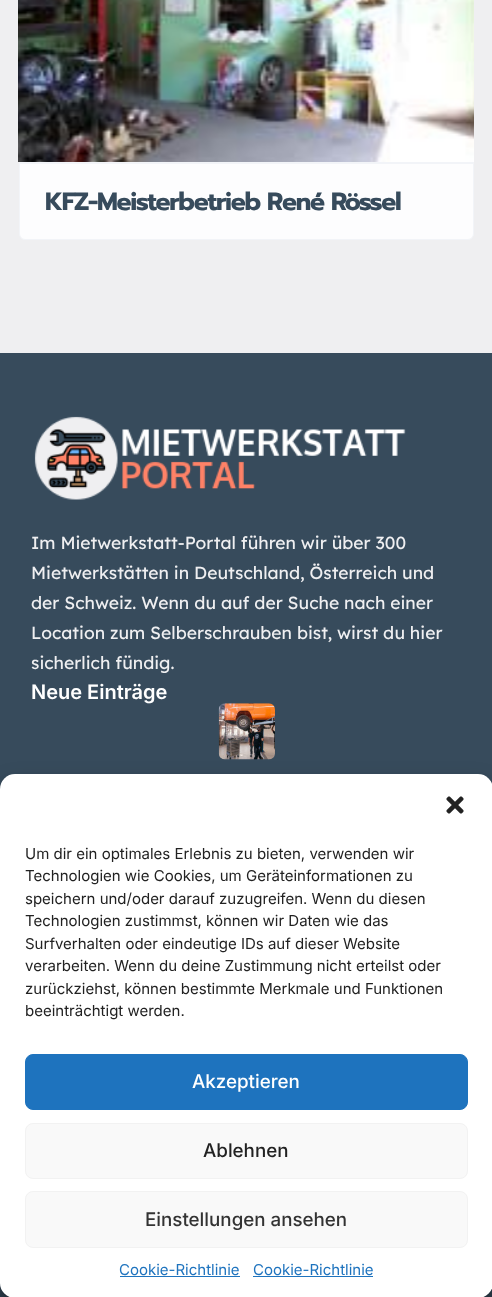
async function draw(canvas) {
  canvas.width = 492
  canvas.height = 1297
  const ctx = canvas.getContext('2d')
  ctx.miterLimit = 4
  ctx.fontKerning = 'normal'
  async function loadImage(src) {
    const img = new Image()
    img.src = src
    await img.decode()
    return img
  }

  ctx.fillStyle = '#374b5c'
  ctx.fillRect(0, 0, 492, 1297)
  ctx.fillStyle = '#efeff1'
  ctx.fillRect(0, 0, 492, 353)
  ctx.fillStyle = '#f2f4f8'
  ctx.fillRect(19, 162, 455, 1)
  ctx.drawImage(await loadImage('image0.png'), 18, 0, 456, 162)
  ctx.fillStyle = '#fdfdfe'
  ctx.beginPath()
  ctx.roundRect(19.5, 163.5, 454, 76, [0, 0, 5.5, 5.5])
  ctx.fill()
  ctx.strokeStyle = '#f2f4f8'
  ctx.stroke()
  ctx.letterSpacing = '-1.25px'
  ctx.font = 'bold 25px Prompt'
  ctx.fillStyle = '#374b5c'
  ctx.fillText('KFZ-Meisterbetrieb René Rössel', 45, 210)
  ctx.drawImage(await loadImage('image1.png'), 34, 416, 372, 84)
  ctx.letterSpacing = '0px'
  ctx.font = '17.5px Lexend Deca'
  ctx.fillStyle = '#efeff1'
  ctx.fillText('Im Mietwerkstatt-Portal führen wir über 300', 31, 549)
  ctx.fillText('Mietwerkstätten in Deutschland, Österreich und', 31, 579)
  ctx.fillText('der Schweiz. Wenn du auf der Suche nach einer', 31, 609)
  ctx.fillText('Location zum Selberschrauben bist, wirst du hier', 31, 639)
  ctx.fillText('sicherlich fündig.', 31, 669)
  ctx.font = '600 20px Inter'
  ctx.fillStyle = '#fff'
  ctx.fillText('Neue Einträge', 31, 699)
  ctx.drawImage(await loadImage('image2.png'), 218, 703, 57, 57)
  ctx.fillStyle = '#314352'
  ctx.fillRect(0, 1283, 492, 14)
  ctx.fillStyle = '#0000003b'
  ctx.filter = 'blur(4px)'
  ctx.beginPath()
  ctx.roundRect(0, 781, 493, 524, 15)
  ctx.fill()
  ctx.filter = 'none'
  ctx.fillStyle = '#00000030'
  ctx.filter = 'blur(12.5px)'
  ctx.beginPath()
  ctx.roundRect(0, 786, 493, 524, 15)
  ctx.fill()
  ctx.filter = 'none'
  ctx.fillStyle = '#fff'
  ctx.beginPath()
  ctx.roundRect(0, 774, 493, 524, 15)
  ctx.fill()
  ctx.drawImage(await loadImage('image3.png'), 446, 796, 18, 18)
  ctx.font = '15px Inter'
  ctx.fillStyle = '#222'
  ctx.fillText('Um dir ein optimales Erlebnis zu bieten, verwenden wir', 25, 859)
  ctx.fillText('Technologien wie Cookies, um Geräteinformationen zu', 25, 881)
  ctx.fillText('speichern und/oder darauf zuzugreifen. Wenn du diesen', 25, 904)
  ctx.fillText('Technologien zustimmst, können wir Daten wie das', 25, 926)
  ctx.fillText('Surfverhalten oder eindeutige IDs auf dieser Website', 25, 949)
  ctx.fillText('verarbeiten. Wenn du deine Zustimmung nicht erteilst oder', 25, 971)
  ctx.fillText('zurückziehst, können bestimmte Merkmale und Funktionen', 25, 994)
  ctx.fillText('beeinträchtigt werden.', 25, 1016)
  ctx.fillStyle = '#1e73be'
  ctx.beginPath()
  ctx.roundRect(25.5, 1054.5, 442, 55, 7.5)
  ctx.fill()
  ctx.strokeStyle = '#1e73be'
  ctx.stroke()
  ctx.font = '500 18.75px Inter'
  ctx.fillStyle = '#fff'
  ctx.fillText('Akzeptieren', 192, 1088)
  ctx.fillStyle = '#f9f9f9'
  ctx.beginPath()
  ctx.roundRect(25.5, 1123.5, 442, 55, 7.5)
  ctx.fill()
  ctx.strokeStyle = '#f2f2f2'
  ctx.stroke()
  ctx.fillStyle = '#222'
  ctx.fillText('Ablehnen', 203, 1157)
  ctx.fillStyle = '#f9f9f9'
  ctx.beginPath()
  ctx.roundRect(25.5, 1191.5, 442, 56, 7.5)
  ctx.fill()
  ctx.stroke()
  ctx.fillStyle = '#333'
  ctx.fillText('Einstellungen ansehen', 145, 1226)
  ctx.font = '15px Inter'
  ctx.fillStyle = '#1e73be'
  ctx.fillText('Cookie-Richtlinie', 119, 1275)
  ctx.fillRect(120, 1276, 120, 1)
  ctx.fillText('Cookie-Richtlinie', 253, 1275)
  ctx.fillRect(253, 1276, 120, 1)
}

draw(document.querySelector('canvas'))
